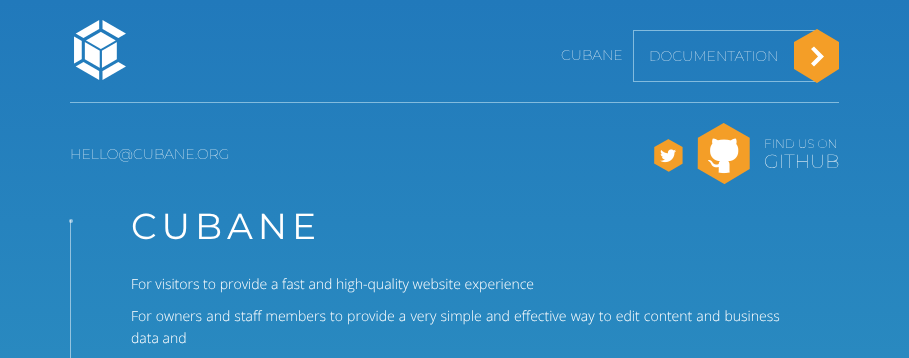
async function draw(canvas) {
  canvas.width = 909
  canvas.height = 358
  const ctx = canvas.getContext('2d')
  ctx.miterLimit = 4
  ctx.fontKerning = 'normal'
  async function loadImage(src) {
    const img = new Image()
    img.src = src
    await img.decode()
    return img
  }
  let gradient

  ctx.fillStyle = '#fff'
  ctx.fillRect(0, 0, 909, 358)
  gradient = ctx.createLinearGradient(454, 0, 455, 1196)
  gradient.addColorStop(0, '#2179bb')
  gradient.addColorStop(1, '#3cafcb')
  ctx.fillStyle = gradient
  ctx.fillRect(0, 0, 909, 358)
  gradient = ctx.createLinearGradient(454, 0, 455, 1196)
  gradient.addColorStop(0, '#90bcdd')
  gradient.addColorStop(1, '#9ed7e5')
  ctx.fillStyle = gradient
  ctx.fillRect(70, 220, 1, 138)
  ctx.drawImage(await loadImage('image0.png'), 74, 20, 52, 60)
  ctx.font = '100 14px Montserrat'
  ctx.fillStyle = '#fff'
  ctx.fillText('CUBANE', 561, 60)
  ctx.strokeStyle = '#82bbde'
  ctx.strokeRect(633.5, 30.5, 185, 51)
  ctx.fillText('DOCUMENTATION', 649, 61)
  ctx.fillStyle = '#f49e27'
  ctx.beginPath()
  ctx.moveTo(839, 69)
  ctx.lineTo(817, 83)
  ctx.lineTo(794, 69)
  ctx.lineTo(794, 42)
  ctx.lineTo(817, 29)
  ctx.lineTo(839, 42)
  ctx.closePath()
  ctx.moveTo(824, 44)
  ctx.lineTo(808, 44)
  ctx.lineTo(808, 66)
  ctx.lineTo(824, 66)
  ctx.closePath()
  ctx.fill('evenodd')
  ctx.fillRect(808, 44, 16, 22)
  ctx.fillStyle = '#fff'
  ctx.beginPath()
  ctx.moveTo(824, 56.5)
  ctx.lineTo(814, 66.5)
  ctx.lineTo(811, 63.5)
  ctx.lineTo(818, 56.5)
  ctx.lineTo(811, 49)
  ctx.lineTo(814, 46.5)
  ctx.closePath()
  ctx.fill()
  ctx.fillStyle = '#82bbde'
  ctx.fillRect(70, 102, 769, 1)
  ctx.fillStyle = '#fff'
  ctx.fillText('HELLO@CUBANE.ORG', 70, 159)
  ctx.drawImage(await loadImage('image1.png'), 654, 139, 29, 33)
  ctx.drawImage(await loadImage('image2.png'), 697, 123, 53, 61)
  ctx.font = '100 12px Montserrat'
  ctx.fillText('FIND US ON', 764, 148)
  ctx.font = '100 19px Montserrat'
  ctx.fillText('GITHUB', 764, 168)
  ctx.fillStyle = '#ffffff80'
  ctx.beginPath()
  ctx.arc(71, 221, 2, 0, 2 * Math.PI)
  ctx.fill()
  ctx.letterSpacing = '5px'
  ctx.font = '36px Montserrat'
  ctx.fillStyle = '#fff'
  ctx.fillText('CUBANE', 131, 239)
  ctx.letterSpacing = '0px'
  ctx.font = '300 14px Open Sans'
  ctx.fillText('For visitors to provide a fast and high-quality website experience', 131, 289)
  ctx.wordSpacing = '0.5px'
  ctx.fillText('For owners and staff members to provide a very simple and effective way to edit content and business', 131, 321)
  ctx.wordSpacing = '0px'
  ctx.fillText('data and', 131, 343)
}

draw(document.querySelector('canvas'))
